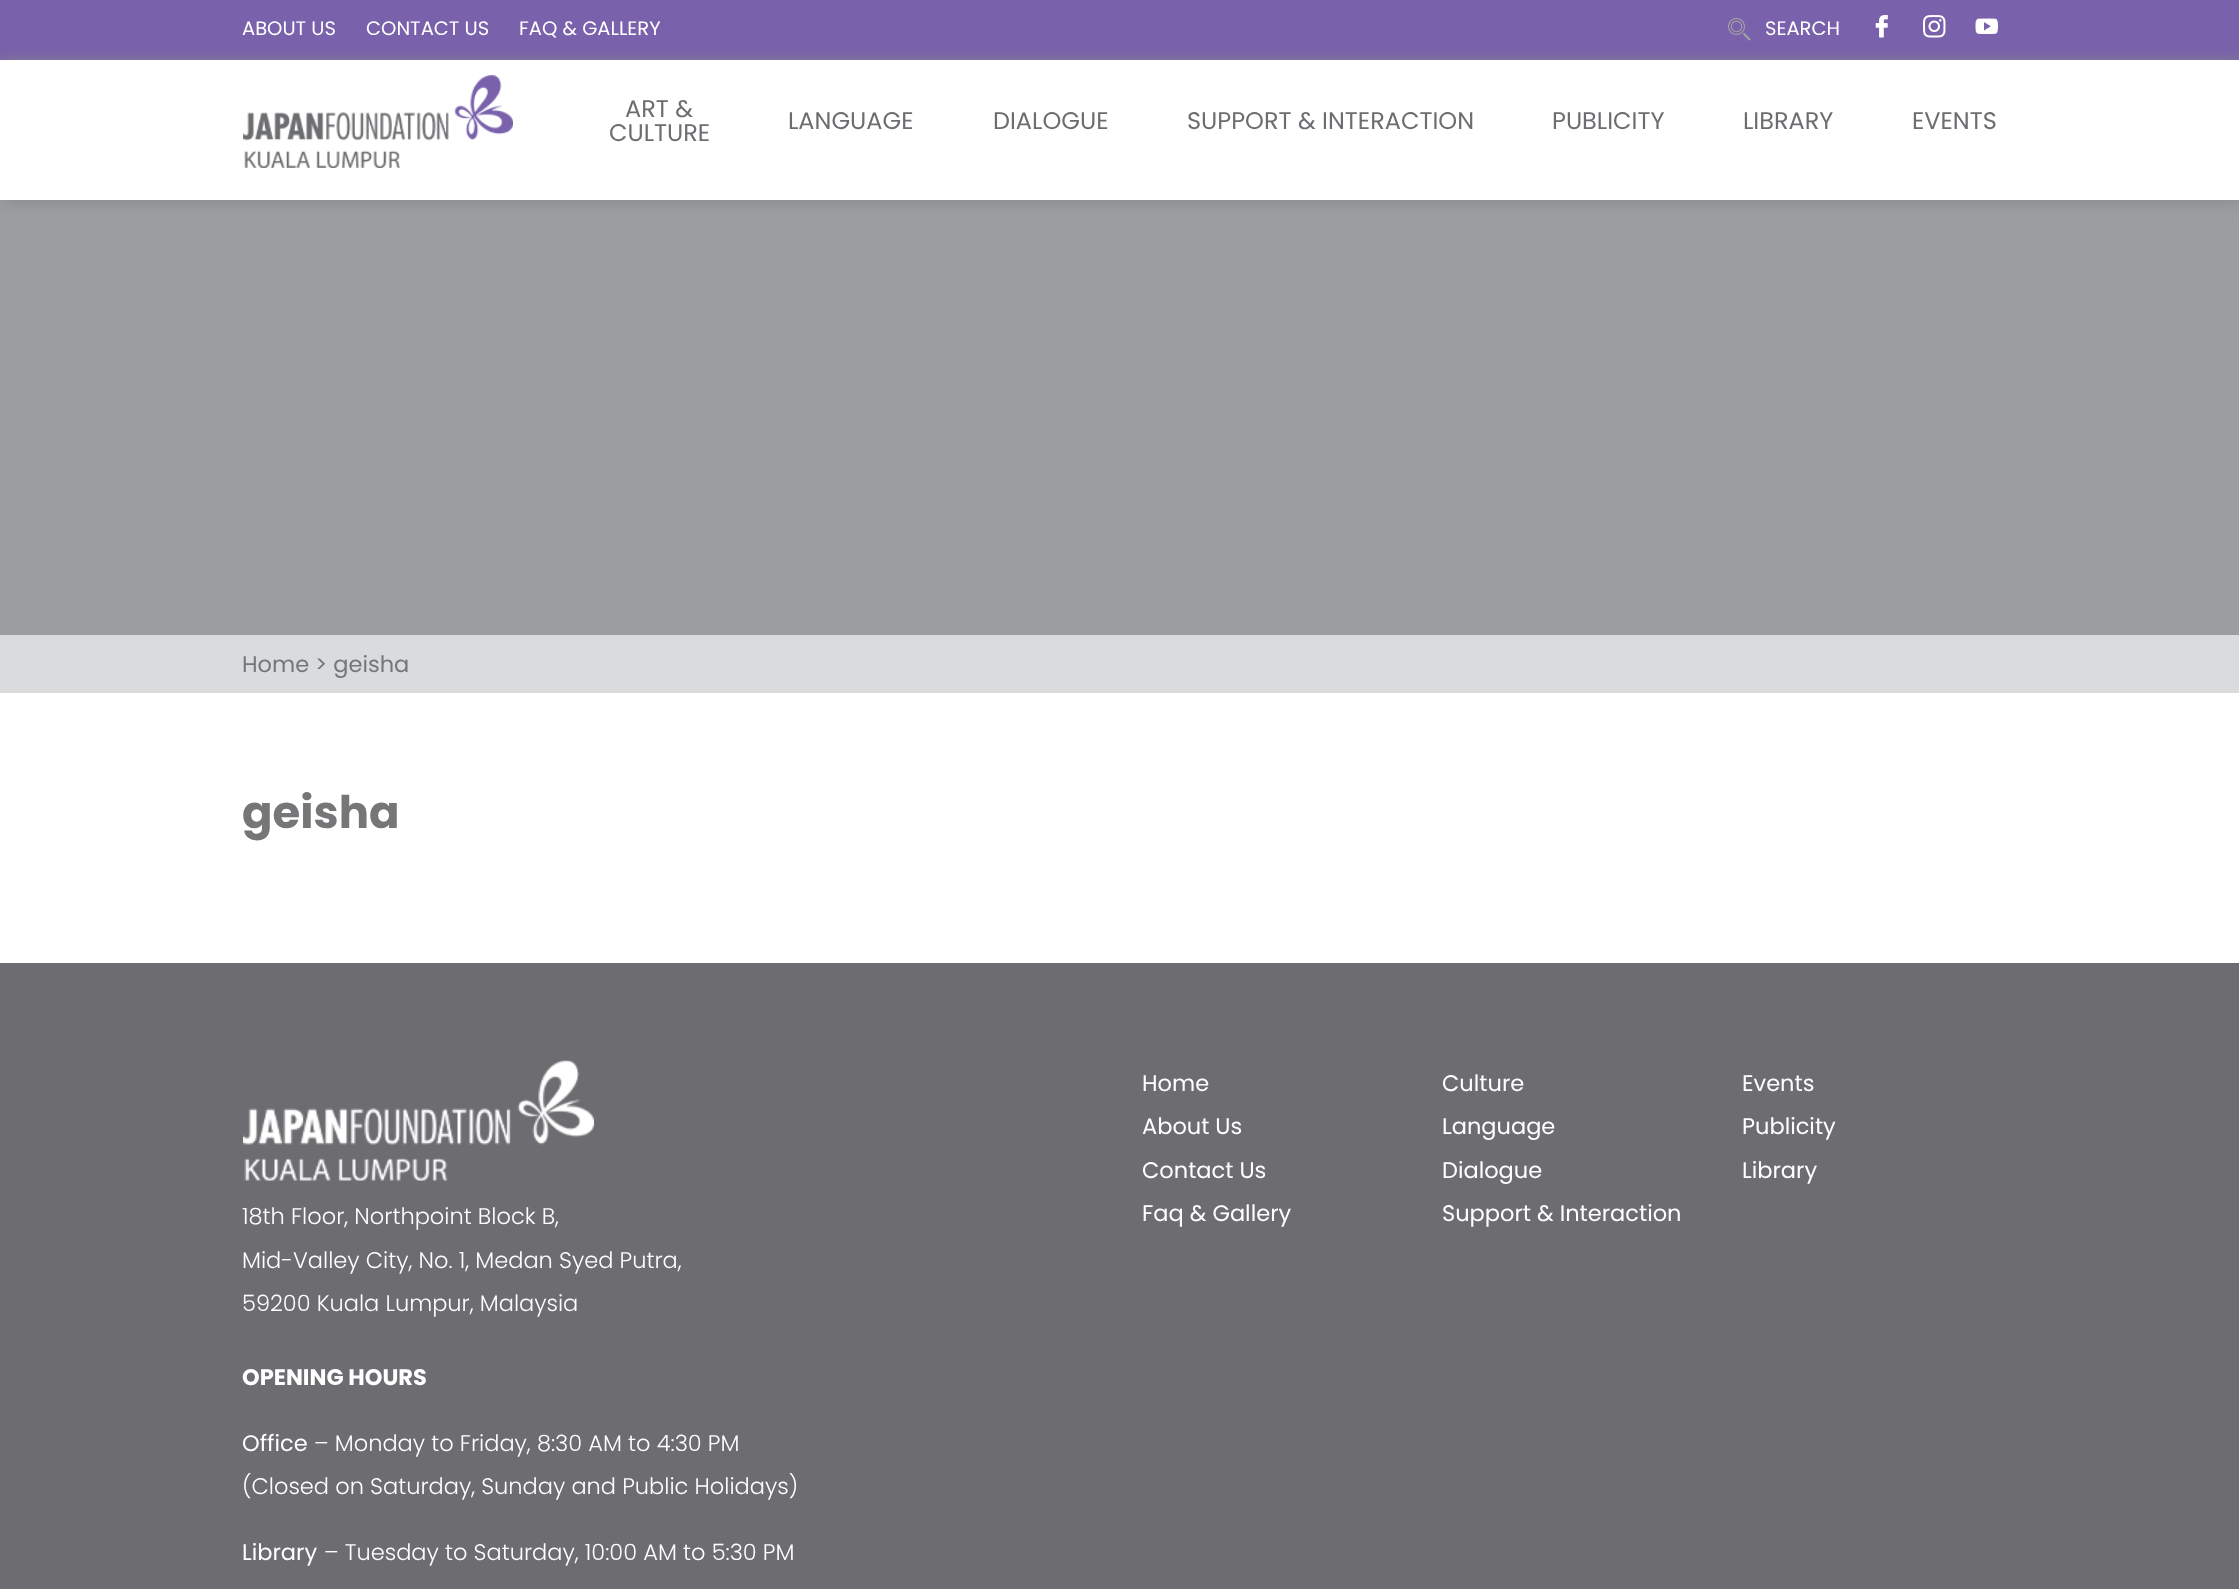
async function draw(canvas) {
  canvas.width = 2239
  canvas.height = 1589
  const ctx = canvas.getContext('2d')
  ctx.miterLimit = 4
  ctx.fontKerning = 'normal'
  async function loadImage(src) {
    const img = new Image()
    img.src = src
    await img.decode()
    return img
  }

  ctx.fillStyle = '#fff'
  ctx.fillRect(0, 0, 2239, 1589)
  ctx.fillStyle = '#7961ab'
  ctx.fillRect(0, 0, 2239, 60)
  ctx.font = '19.5px Poppins'
  ctx.fillStyle = '#fff'
  ctx.fillText('ABOUT US', 242, 35)
  ctx.fillText('CONTACT US', 366, 35)
  ctx.fillText('FAQ & GALLERY', 519, 35)
  ctx.drawImage(await loadImage('image0.png'), 1728, 18, 23, 23)
  ctx.fillText('SEARCH', 1765, 35)
  ctx.drawImage(await loadImage('image1.png'), 1875, 15, 13, 23)
  ctx.drawImage(await loadImage('image2.png'), 1923, 15, 23, 23)
  ctx.drawImage(await loadImage('image3.png'), 1975, 18, 23, 16)
  ctx.fillStyle = '#9b9d9f'
  ctx.fillRect(0, 200, 2239, 435)
  ctx.fillStyle = '#888'
  ctx.filter = 'blur(7.5px)'
  ctx.beginPath()
  ctx.rect(2, 62, 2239, 139)
  ctx.fill()
  ctx.filter = 'none'
  ctx.fillStyle = '#fff'
  ctx.fillRect(0, 60, 2239, 140)
  ctx.drawImage(await loadImage('image4.png'), 243, 75, 270, 93)
  ctx.font = '24px Poppins'
  ctx.fillStyle = '#6d6d71'
  ctx.fillText('ART &', 625, 117)
  ctx.fillText('CULTURE', 609, 141)
  ctx.fillText('LANGUAGE', 788, 129)
  ctx.fillText('DIALOGUE', 993, 129)
  ctx.fillText('SUPPORT & INTERACTION', 1187, 129)
  ctx.fillText('PUBLICITY', 1552, 129)
  ctx.fillText('LIBRARY', 1743, 129)
  ctx.fillText('EVENTS', 1912, 129)
  ctx.fillStyle = '#dadbdd'
  ctx.fillRect(0, 635, 2239, 58)
  ctx.font = '22.5px Poppins'
  ctx.fillStyle = '#757678'
  ctx.fillText('Home > geisha', 242, 672)
  ctx.font = 'bold 45px Poppins'
  ctx.fillText('geisha', 242, 828)
  ctx.fillStyle = '#6d6d71'
  ctx.fillRect(0, 963, 2239, 626)
  ctx.font = '22.5px Poppins'
  ctx.fillStyle = '#fff'
  ctx.fillText('Home', 1142, 1091)
  ctx.fillText('About Us', 1142, 1134)
  ctx.fillText('Contact Us', 1142, 1178)
  ctx.fillText('Faq & Gallery', 1142, 1221)
  ctx.fillText('Culture', 1442, 1091)
  ctx.fillText('Language', 1442, 1134)
  ctx.fillText('Dialogue', 1442, 1178)
  ctx.fillText('Support & Interaction', 1442, 1221)
  ctx.fillText('Events', 1742, 1091)
  ctx.fillText('Publicity', 1742, 1134)
  ctx.fillText('Library', 1742, 1178)
  ctx.drawImage(await loadImage('image5.png'), 243, 1060, 351, 121)
  ctx.font = '300 22.5px Poppins'
  ctx.fillText('18th Floor, Northpoint Block B,', 242, 1224)
  ctx.fillText('Mid-Valley City, No. 1, Medan Syed Putra,', 242, 1268)
  ctx.fillText('59200 Kuala Lumpur, Malaysia', 242, 1311)
  ctx.font = 'bold 22.5px Poppins'
  ctx.fillText('OPENING HOURS', 242, 1385)
  ctx.font = '22.5px Poppins'
  ctx.fillText('Office', 242, 1451)
  ctx.font = '300 22.5px Poppins'
  ctx.fillText('– Monday to Friday, 8:30 AM to 4:30 PM', 314, 1451)
  ctx.fillText('(Closed on Saturday, Sunday and Public Holidays)', 242, 1494)
  ctx.font = '22.5px Poppins'
  ctx.fillText('Library', 242, 1560)
  ctx.font = '300 22.5px Poppins'
  ctx.fillText('– Tuesday to Saturday, 10:00 AM to 5:30 PM', 324, 1560)
}

draw(document.querySelector('canvas'))
